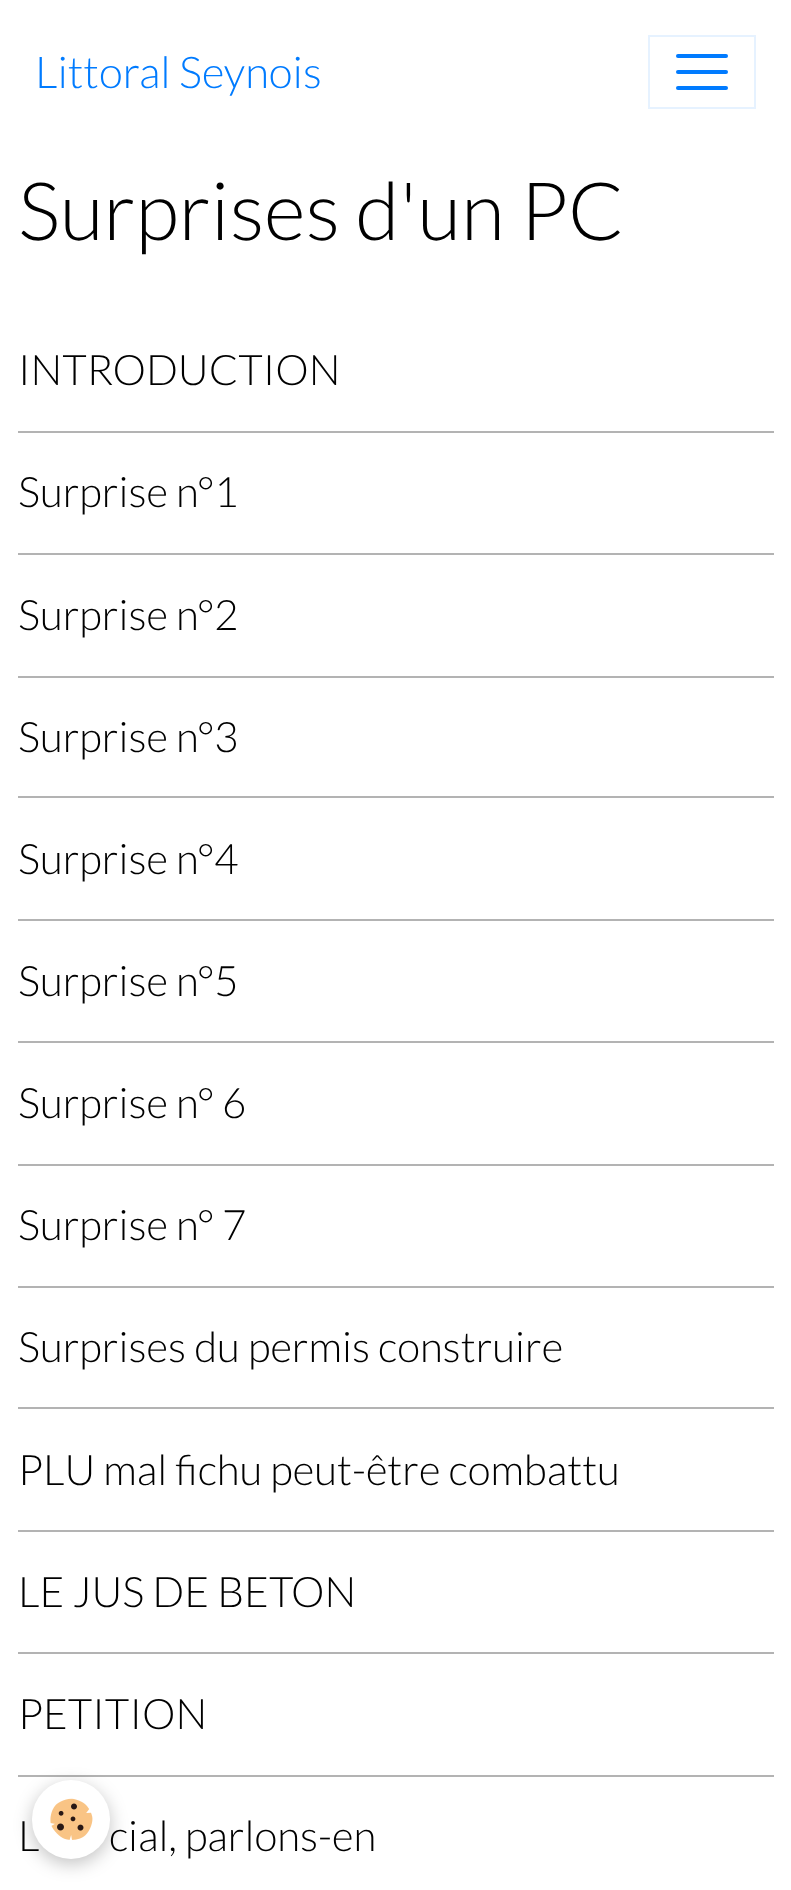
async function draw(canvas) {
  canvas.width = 791
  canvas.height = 1890
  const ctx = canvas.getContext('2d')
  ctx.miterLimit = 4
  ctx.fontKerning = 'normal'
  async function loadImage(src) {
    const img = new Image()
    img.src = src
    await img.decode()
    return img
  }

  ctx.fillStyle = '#fff'
  ctx.fillRect(0, 0, 791, 1890)
  ctx.font = '300 43.75px Lato'
  ctx.fillStyle = '#007bff'
  ctx.fillText('Littoral Seynois', 35, 88)
  ctx.strokeStyle = '#e6f2ff'
  ctx.lineWidth = 2
  ctx.strokeRect(649, 36, 106, 72)
  ctx.beginPath()
  ctx.roundRect(676, 54, 52, 4, 2)
  ctx.fill()
  ctx.beginPath()
  ctx.roundRect(676, 70, 52, 4, 2)
  ctx.fill()
  ctx.beginPath()
  ctx.roundRect(676, 86, 52, 4, 2)
  ctx.fill()
  ctx.font = '300 80.5px Lato'
  ctx.fillStyle = '#000'
  ctx.fillText('Surprises d\'un PC', 18, 240)
  ctx.font = '300 42px Lato'
  ctx.fillText('INTRODUCTION', 18, 385)
  ctx.fillStyle = '#b3b3b3'
  ctx.fillRect(18, 431, 756, 2)
  ctx.fillStyle = '#000'
  ctx.fillText('Surprise n°1', 18, 507)
  ctx.fillStyle = '#b3b3b3'
  ctx.fillRect(18, 553, 756, 2)
  ctx.fillStyle = '#000'
  ctx.fillText('Surprise n°2', 18, 630)
  ctx.fillStyle = '#b3b3b3'
  ctx.fillRect(18, 676, 756, 2)
  ctx.fillStyle = '#000'
  ctx.fillText('Surprise n°3', 18, 752)
  ctx.fillStyle = '#b3b3b3'
  ctx.fillRect(18, 796, 756, 2)
  ctx.fillStyle = '#000'
  ctx.fillText('Surprise n°4', 18, 874)
  ctx.fillStyle = '#b3b3b3'
  ctx.fillRect(18, 919, 756, 2)
  ctx.fillStyle = '#000'
  ctx.fillText('Surprise n°5', 18, 996)
  ctx.fillStyle = '#b3b3b3'
  ctx.fillRect(18, 1041, 756, 2)
  ctx.fillStyle = '#000'
  ctx.fillText('Surprise n° 6', 18, 1118)
  ctx.fillStyle = '#b3b3b3'
  ctx.fillRect(18, 1164, 756, 2)
  ctx.fillStyle = '#000'
  ctx.fillText('Surprise n° 7', 18, 1240)
  ctx.fillStyle = '#b3b3b3'
  ctx.fillRect(18, 1286, 756, 2)
  ctx.fillStyle = '#000'
  ctx.fillText('Surprises du permis construire', 18, 1362)
  ctx.fillStyle = '#b3b3b3'
  ctx.fillRect(18, 1407, 756, 2)
  ctx.fillStyle = '#000'
  ctx.fillText('PLU mal fichu peut-être combattu', 18, 1485)
  ctx.fillStyle = '#b3b3b3'
  ctx.fillRect(18, 1530, 756, 2)
  ctx.fillStyle = '#000'
  ctx.fillText('LE JUS DE BETON', 18, 1607)
  ctx.fillStyle = '#b3b3b3'
  ctx.fillRect(18, 1652, 756, 2)
  ctx.fillStyle = '#000'
  ctx.fillText('PETITION', 18, 1729)
  ctx.fillStyle = '#b3b3b3'
  ctx.fillRect(18, 1775, 756, 2)
  ctx.fillStyle = '#000'
  ctx.fillText('L', 18, 1851)
  ctx.fillText('cial, parlons-en', 109, 1851)
  ctx.fillStyle = '#0000003d'
  ctx.filter = 'blur(9px)'
  ctx.beginPath()
  ctx.roundRect(32, 1785, 78, 79, 39)
  ctx.fill()
  ctx.filter = 'none'
  ctx.fillStyle = '#fff'
  ctx.beginPath()
  ctx.roundRect(32, 1780, 78, 79, 39)
  ctx.fill()
  ctx.drawImage(await loadImage('image0.png'), 50, 1798, 43, 42)
}

draw(document.querySelector('canvas'))
